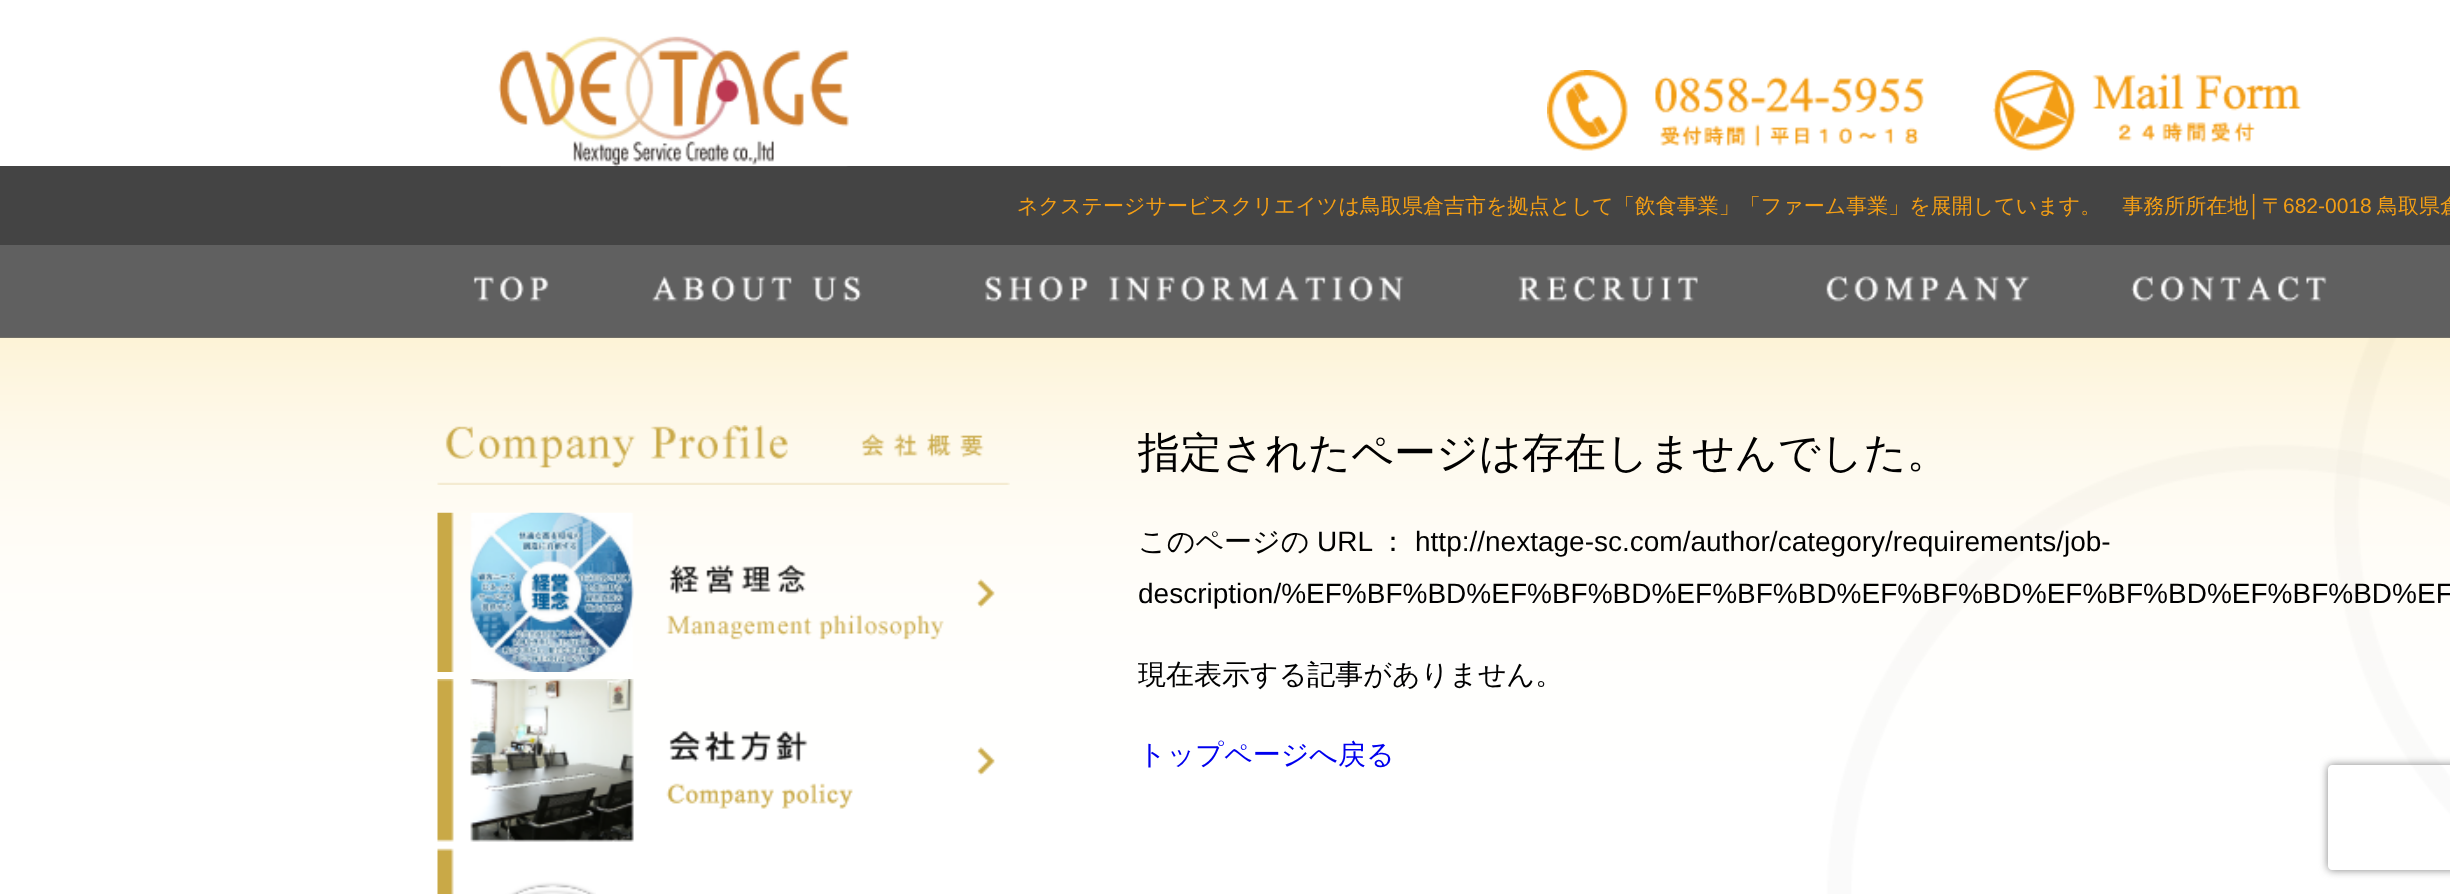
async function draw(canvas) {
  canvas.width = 2450
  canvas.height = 894
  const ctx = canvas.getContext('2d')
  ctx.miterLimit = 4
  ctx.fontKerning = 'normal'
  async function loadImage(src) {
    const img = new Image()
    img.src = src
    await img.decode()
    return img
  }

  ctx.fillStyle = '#fff'
  ctx.fillRect(0, 0, 2450, 894)
  ctx.fillStyle = '#444'
  ctx.fillRect(0, 166, 2450, 79)
  ctx.drawImage(await loadImage('image0.png'), 498, 36, 351, 131)
  ctx.drawImage(await loadImage('image1.png'), 1547, 70, 377, 81)
  ctx.drawImage(await loadImage('image2.png'), 1993, 70, 309, 81)
  ctx.font = '500 21px WenQuanYi Zen Hei'
  ctx.fillStyle = '#f39e15'
  ctx.fillText('ネクステージサービスクリエイツは鳥取県倉吉市を拠点として「飲食事業」「ファーム事業」を展開しています。　事務所所在地', 1017, 213)
  ctx.font = '21px Liberation Sans'
  ctx.fillText('│', 2248, 213)
  ctx.font = '500 21px WenQuanYi Zen Hei'
  ctx.fillText('〒', 2262, 213)
  ctx.font = '21px Liberation Sans'
  ctx.fillText('682-0018', 2283, 213)
  ctx.font = '500 21px WenQuanYi Zen Hei'
  ctx.fillText('鳥取県倉', 2377, 213)
  ctx.fillStyle = '#606060'
  ctx.fillRect(0, 245, 2450, 93)
  ctx.drawImage(await loadImage('image3.png'), 473, 276, 76, 26)
  ctx.drawImage(await loadImage('image4.png'), 652, 276, 210, 26)
  ctx.drawImage(await loadImage('image5.png'), 985, 276, 419, 26)
  ctx.drawImage(await loadImage('image6.png'), 1518, 276, 180, 26)
  ctx.drawImage(await loadImage('image7.png'), 1826, 276, 204, 26)
  ctx.drawImage(await loadImage('image8.png'), 2131, 276, 196, 26)
  ctx.drawImage(await loadImage('image9.png'), 0, 337, 2450, 557)
  ctx.drawImage(await loadImage('image10.png'), 437, 425, 573, 60)
  ctx.drawImage(await loadImage('image11.png'), 437, 512, 558, 160)
  ctx.drawImage(await loadImage('image12.png'), 437, 679, 558, 163)
  ctx.drawImage(await loadImage('image13.png'), 437, 848, 159, 46)
  ctx.font = '500 42px WenQuanYi Zen Hei'
  ctx.fillStyle = '#000'
  ctx.fillText('指定されたページは存在しませんでした。', 1138, 467)
  ctx.font = '500 28px WenQuanYi Zen Hei'
  ctx.fillText('このページの', 1138, 551)
  ctx.font = '28px Liberation Sans'
  ctx.fillText('URL', 1317, 551)
  ctx.font = '500 28px WenQuanYi Zen Hei'
  ctx.fillText('：', 1379, 551)
  ctx.font = '28px Liberation Sans'
  ctx.fillText('http://nextage-sc.com/author/category/requirements/job-', 1415, 551)
  ctx.fillText('description/%EF%BF%BD%EF%BF%BD%EF%BF%BD%EF%BF%BD%EF%BF%BD%EF%BF%BD%EF', 1138, 603)
  ctx.font = '500 28px WenQuanYi Zen Hei'
  ctx.fillText('現在表示する記事がありません。', 1138, 684)
  ctx.fillStyle = '#00e'
  ctx.fillText('トップページへ戻る', 1138, 764)
  ctx.save()
  ctx.beginPath()
  ctx.moveTo(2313, 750)
  ctx.lineTo(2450, 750)
  ctx.lineTo(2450, 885)
  ctx.lineTo(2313, 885)
  ctx.closePath()
  ctx.moveTo(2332, 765)
  ctx.lineTo(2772, 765)
  ctx.bezierCurveTo(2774, 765, 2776, 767, 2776, 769)
  ctx.lineTo(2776, 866)
  ctx.bezierCurveTo(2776, 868, 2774, 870, 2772, 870)
  ctx.lineTo(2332, 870)
  ctx.bezierCurveTo(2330, 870, 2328, 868, 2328, 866)
  ctx.lineTo(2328, 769)
  ctx.bezierCurveTo(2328, 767, 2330, 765, 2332, 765)
  ctx.closePath()
  ctx.clip('evenodd')
  ctx.fillStyle = '#808080'
  ctx.filter = 'blur(4.5px)'
  ctx.beginPath()
  ctx.roundRect(2328, 765, 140, 105, 4)
  ctx.fill()
  ctx.filter = 'none'
  ctx.restore()
}

draw(document.querySelector('canvas'))
